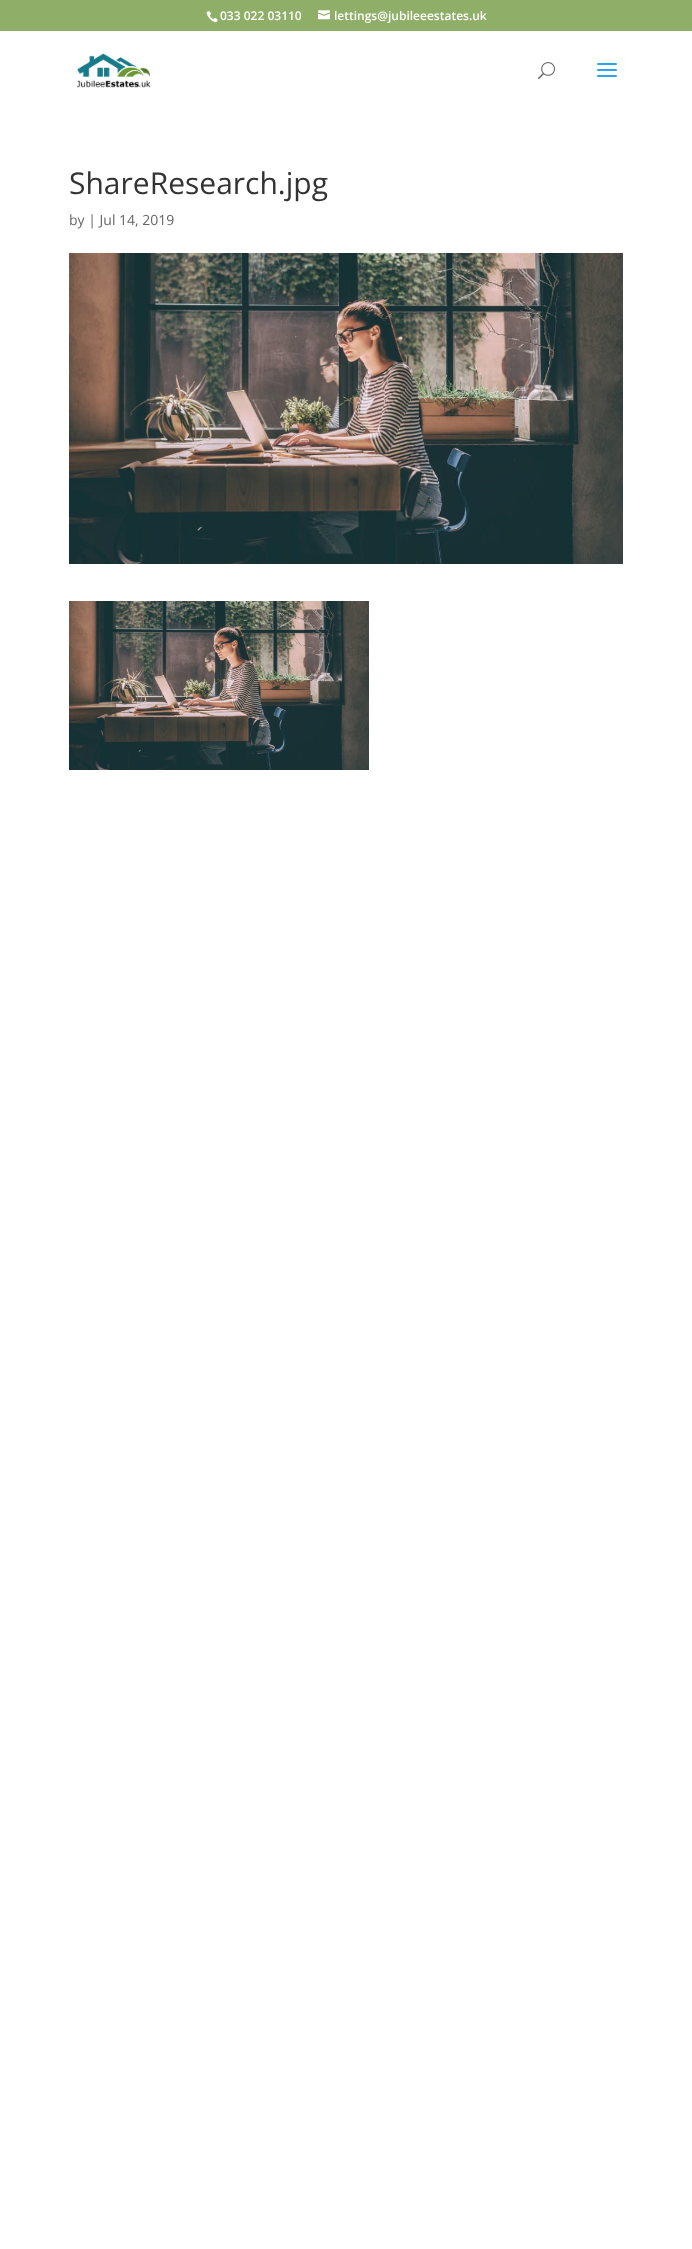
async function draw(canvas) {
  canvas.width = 692
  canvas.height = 2249
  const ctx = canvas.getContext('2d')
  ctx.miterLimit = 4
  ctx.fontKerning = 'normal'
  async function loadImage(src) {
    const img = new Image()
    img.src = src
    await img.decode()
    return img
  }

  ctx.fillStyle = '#fff'
  ctx.fillRect(0, 0, 692, 2249)
  ctx.fillStyle = '#8faf69'
  ctx.fillRect(0, 0, 692, 31)
  ctx.drawImage(await loadImage('image0.png'), 206, 11, 12, 12)
  ctx.font = '600 12px Open Sans'
  ctx.fillStyle = '#fff'
  ctx.fillText('033 022 03110', 220, 20)
  ctx.drawImage(await loadImage('image1.png'), 318, 10, 12, 10)
  ctx.fillText('lettings@jubileeestates.uk', 334, 20)
  ctx.drawImage(await loadImage('image2.png'), 76, 53, 75, 35)
  ctx.drawImage(await loadImage('image3.png'), 538, 62, 17, 18)
  ctx.drawImage(await loadImage('image4.png'), 597, 63, 20, 14)
  ctx.font = '30px Open Sans'
  ctx.fillStyle = '#333'
  ctx.fillText('ShareResearch.jpg', 69, 194)
  ctx.font = '14px Open Sans'
  ctx.fillStyle = '#666'
  ctx.fillText('by | Jul 14, 2019', 69, 225)
  ctx.drawImage(await loadImage('image5.png'), 69, 253, 554, 311)
  ctx.drawImage(await loadImage('image6.png'), 69, 601, 300, 169)
}

draw(document.querySelector('canvas'))
